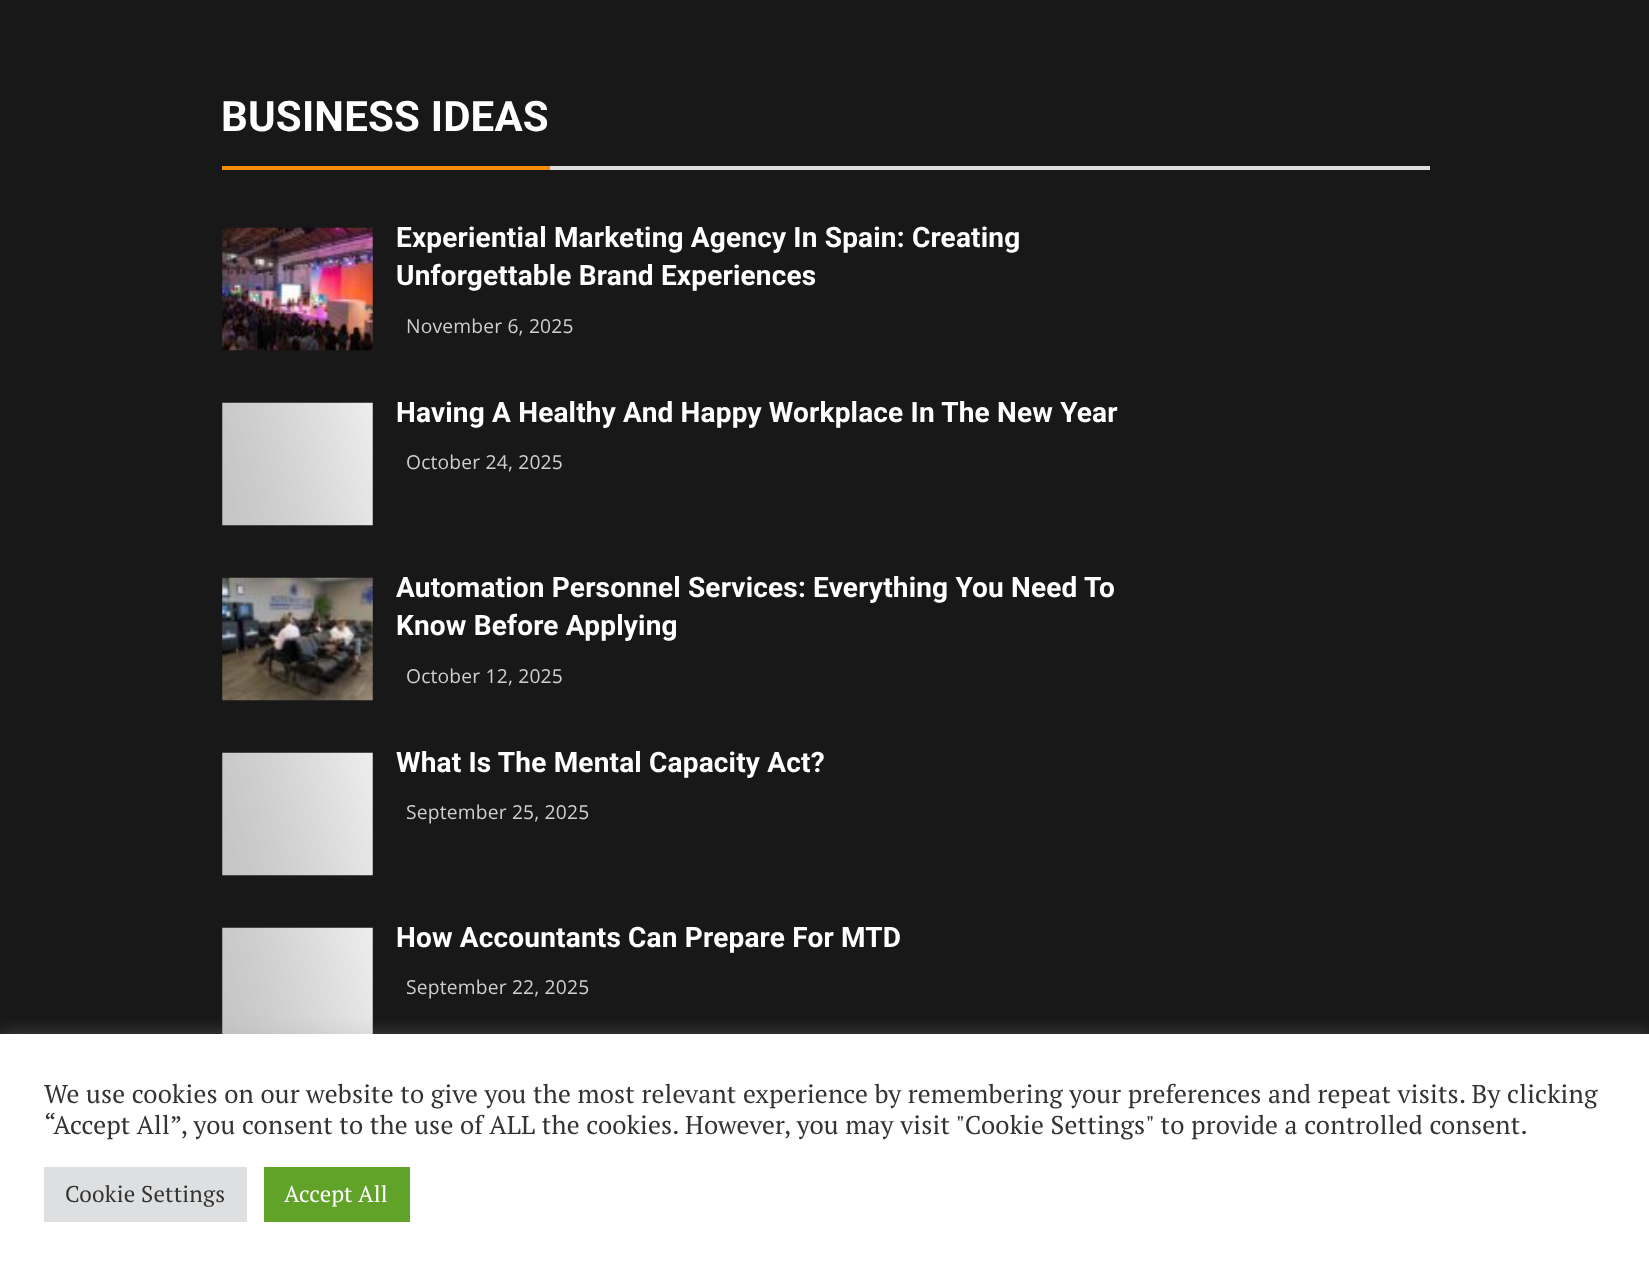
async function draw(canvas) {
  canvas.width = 1649
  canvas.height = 1273
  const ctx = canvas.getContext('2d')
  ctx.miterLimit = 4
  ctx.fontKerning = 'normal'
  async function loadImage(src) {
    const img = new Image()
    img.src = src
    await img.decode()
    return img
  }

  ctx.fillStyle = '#181818'
  ctx.fillRect(0, 0, 1649, 1273)
  ctx.letterSpacing = '0.18px'
  ctx.font = 'bold 42px Roboto'
  ctx.fillStyle = '#fff'
  ctx.fillText('BUSINESS IDEAS', 221, 131)
  ctx.fillStyle = '#f88c00'
  ctx.fillRect(222, 166, 328, 4)
  ctx.fillStyle = '#ddd'
  ctx.fillRect(550, 166, 880, 4)
  ctx.drawImage(await loadImage('image0.png'), 222, 227, 151, 124)
  ctx.font = 'bold 28px Roboto'
  ctx.fillStyle = '#fff'
  ctx.fillText('Experiential Marketing Agency In Spain: Creating', 396, 247)
  ctx.fillText('Unforgettable Brand Experiences', 396, 285)
  ctx.font = '19.25px Open Sans'
  ctx.fillStyle = '#cecece'
  ctx.fillText('November 6, 2025', 406, 333)
  ctx.drawImage(await loadImage('image1.png'), 222, 402, 151, 124)
  ctx.font = 'bold 28px Roboto'
  ctx.fillStyle = '#fff'
  ctx.fillText('Having A Healthy And Happy Workplace In The New Year', 396, 422)
  ctx.font = '19.25px Open Sans'
  ctx.fillStyle = '#cecece'
  ctx.fillText('October 24, 2025', 406, 469)
  ctx.drawImage(await loadImage('image2.png'), 222, 577, 151, 124)
  ctx.font = 'bold 28px Roboto'
  ctx.fillStyle = '#fff'
  ctx.fillText('Automation Personnel Services: Everything You Need To', 396, 597)
  ctx.fillText('Know Before Applying', 396, 635)
  ctx.font = '19.25px Open Sans'
  ctx.fillStyle = '#cecece'
  ctx.fillText('October 12, 2025', 406, 683)
  ctx.drawImage(await loadImage('image1.png'), 222, 752, 151, 124)
  ctx.font = 'bold 28px Roboto'
  ctx.fillStyle = '#fff'
  ctx.fillText('What Is The Mental Capacity Act?', 396, 772)
  ctx.font = '19.25px Open Sans'
  ctx.fillStyle = '#cecece'
  ctx.fillText('September 25, 2025', 406, 819)
  ctx.drawImage(await loadImage('image3.png'), 222, 927, 151, 107)
  ctx.font = 'bold 28px Roboto'
  ctx.fillStyle = '#fff'
  ctx.fillText('How Accountants Can Prepare For MTD', 396, 947)
  ctx.font = '19.25px Open Sans'
  ctx.fillStyle = '#cecece'
  ctx.fillText('September 22, 2025', 406, 994)
  ctx.fillStyle = '#acabab4d'
  ctx.filter = 'blur(9px)'
  ctx.beginPath()
  ctx.rect(0, 1033, 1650, 239)
  ctx.fill()
  ctx.filter = 'none'
  ctx.fillStyle = '#fff'
  ctx.fillRect(0, 1034, 1649, 239)
  ctx.font = '25.67px PT Serif'
  ctx.fillStyle = '#333'
  ctx.fillText('We use cookies on our website to give you the most relevant experience by remembering your preferences and repeat visits. By clicking', 44, 1103)
  ctx.fillText('“Accept All”, you consent to the use of ALL the cookies. However, you may visit "Cookie Settings" to provide a controlled consent.', 44, 1134)
  ctx.fillStyle = '#dedfe0'
  ctx.fillRect(44, 1167, 203, 55)
  ctx.font = '22.75px PT Serif'
  ctx.fillStyle = '#333'
  ctx.fillText('Cookie Settings', 65, 1202)
  ctx.fillStyle = '#61a229'
  ctx.fillRect(264, 1167, 146, 55)
  ctx.fillStyle = '#fff'
  ctx.fillText('Accept All', 284, 1202)
}

draw(document.querySelector('canvas'))
